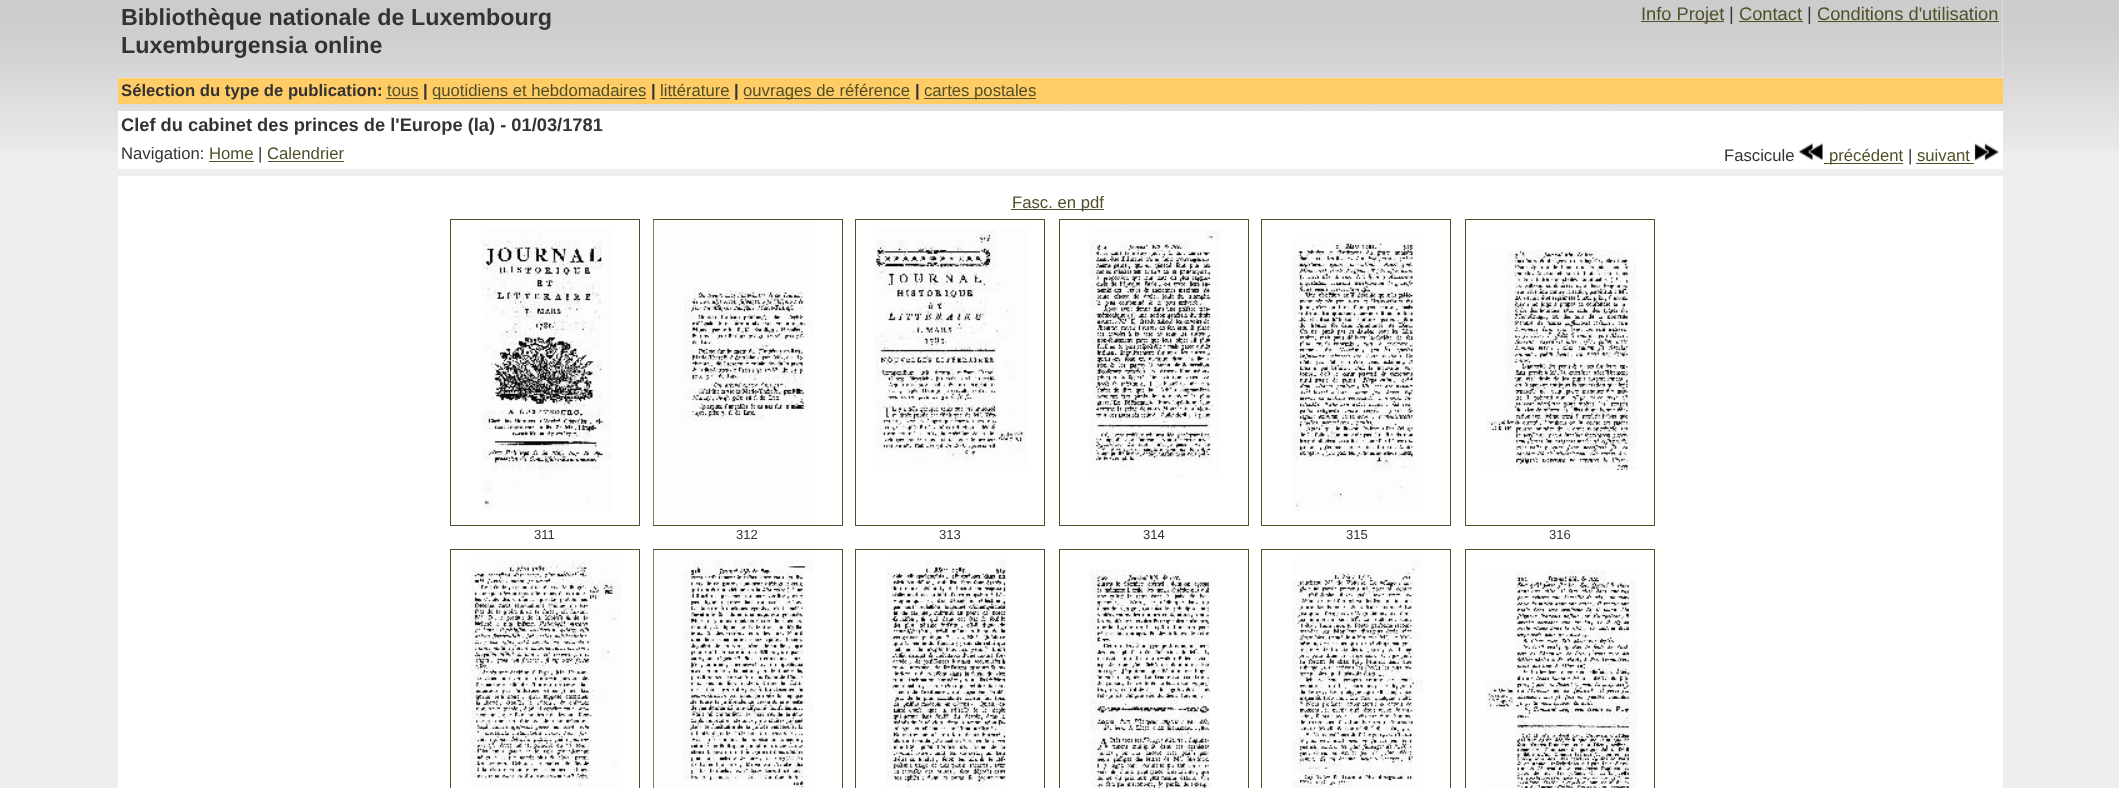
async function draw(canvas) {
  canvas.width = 2119
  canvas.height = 788
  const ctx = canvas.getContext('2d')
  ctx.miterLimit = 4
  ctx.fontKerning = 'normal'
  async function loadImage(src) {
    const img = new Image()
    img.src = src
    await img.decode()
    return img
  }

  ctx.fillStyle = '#eee'
  ctx.fillRect(0, 0, 2119, 788)
  ctx.drawImage(await loadImage('image0.png'), 0, 0, 2119, 151)
  ctx.fillRect(118, 0, 1885, 78)
  ctx.drawImage(await loadImage('image1.png'), 118, 0, 1885, 78)
  ctx.font = 'bold 23.3px Liberation Sans'
  ctx.fillStyle = '#333'
  ctx.fillText('Bibliothèque nationale de Luxembourg', 121, 25)
  ctx.fillText('Luxemburgensia online', 121, 53)
  ctx.fillStyle = '#4f4f28'
  ctx.fillRect(1641, 21, 83, 1)
  ctx.font = '18.3px Liberation Sans'
  ctx.fillText('Info Projet', 1641, 20)
  ctx.fillStyle = '#333'
  ctx.fillText('|', 1729, 20)
  ctx.fillStyle = '#4f4f28'
  ctx.fillText('Contact', 1739, 20)
  ctx.fillRect(1739, 21, 64, 1)
  ctx.fillStyle = '#333'
  ctx.fillText('|', 1807, 20)
  ctx.fillStyle = '#4f4f28'
  ctx.fillText('Conditions d\'utilisation', 1817, 20)
  ctx.fillRect(1818, 21, 181, 1)
  ctx.fillStyle = '#fc6'
  ctx.fillRect(118, 78, 1885, 26)
  ctx.font = 'bold 16.7px Liberation Sans'
  ctx.fillStyle = '#333'
  ctx.fillText('Sélection du type de publication:', 121, 96)
  ctx.font = '16.7px Liberation Sans'
  ctx.fillStyle = '#4f4f28'
  ctx.fillText('tous', 387, 96)
  ctx.fillRect(386, 98, 33, 1)
  ctx.font = 'bold 16.7px Liberation Sans'
  ctx.fillStyle = '#333'
  ctx.fillText('|', 423, 96)
  ctx.fillStyle = '#4f4f28'
  ctx.fillRect(433, 98, 213, 1)
  ctx.font = '16.7px Liberation Sans'
  ctx.fillText('quotidiens et hebdomadaires', 432, 96)
  ctx.font = 'bold 16.7px Liberation Sans'
  ctx.fillStyle = '#333'
  ctx.fillText('|', 651, 96)
  ctx.font = '16.7px Liberation Sans'
  ctx.fillStyle = '#4f4f28'
  ctx.fillText('littérature', 660, 96)
  ctx.fillRect(660, 98, 70, 1)
  ctx.font = 'bold 16.7px Liberation Sans'
  ctx.fillStyle = '#333'
  ctx.fillText('|', 734, 96)
  ctx.fillStyle = '#4f4f28'
  ctx.fillRect(744, 98, 166, 1)
  ctx.font = '16.7px Liberation Sans'
  ctx.fillText('ouvrages de référence', 743, 96)
  ctx.font = 'bold 16.7px Liberation Sans'
  ctx.fillStyle = '#333'
  ctx.fillText('|', 915, 96)
  ctx.fillStyle = '#4f4f28'
  ctx.fillRect(924, 98, 112, 1)
  ctx.font = '16.7px Liberation Sans'
  ctx.fillText('cartes postales', 924, 96)
  ctx.fillStyle = '#fff'
  ctx.fillRect(118, 111, 1885, 58)
  ctx.font = 'bold 18.3px Liberation Sans'
  ctx.fillStyle = '#333'
  ctx.fillText('Clef du cabinet des princes de l\'Europe (la) - 01/03/1781', 121, 131)
  ctx.font = '16.7px Liberation Sans'
  ctx.fillText('Navigation:', 121, 159)
  ctx.fillStyle = '#4f4f28'
  ctx.fillText('Home', 209, 159)
  ctx.fillRect(209, 161, 45, 1)
  ctx.fillStyle = '#333'
  ctx.fillText('|', 258, 159)
  ctx.fillStyle = '#4f4f28'
  ctx.fillText('Calendrier', 267, 159)
  ctx.fillRect(268, 161, 76, 1)
  ctx.fillStyle = '#333'
  ctx.fillText('Fascicule', 1724, 161)
  ctx.drawImage(await loadImage('image2.png'), 1798, 142, 25, 19)
  ctx.fillStyle = '#4f4f28'
  ctx.fillRect(1824, 163, 79, 1)
  ctx.fillText('précédent', 1829, 161)
  ctx.fillStyle = '#333'
  ctx.fillText('|', 1908, 161)
  ctx.fillStyle = '#4f4f28'
  ctx.fillText('suivant', 1917, 161)
  ctx.fillRect(1916, 163, 58, 1)
  ctx.drawImage(await loadImage('image3.png'), 1974, 143, 25, 18)
  ctx.fillStyle = '#fff'
  ctx.fillRect(118, 176, 1885, 612)
  ctx.fillStyle = '#4f4f28'
  ctx.fillRect(1011, 209, 93, 1)
  ctx.fillText('Fasc. en pdf', 1012, 208)
  ctx.strokeStyle = '#4f4f28'
  ctx.strokeRect(450.5, 219.5, 189, 306)
  ctx.drawImage(await loadImage('image4.png'), 481, 229, 131, 282)
  ctx.font = '13px Liberation Sans'
  ctx.fillStyle = '#333'
  ctx.fillText('311', 534, 539)
  ctx.strokeRect(653.5, 219.5, 189, 306)
  ctx.drawImage(await loadImage('image5.png'), 653, 220, 161, 305)
  ctx.fillText('312', 736, 539)
  ctx.strokeRect(855.5, 219.5, 189, 306)
  ctx.drawImage(await loadImage('image6.png'), 873, 229, 154, 237)
  ctx.fillText('313', 939, 539)
  ctx.strokeRect(1059.5, 219.5, 189, 306)
  ctx.drawImage(await loadImage('image7.png'), 1089, 229, 132, 250)
  ctx.fillText('314', 1143, 539)
  ctx.strokeRect(1261.5, 219.5, 189, 306)
  ctx.drawImage(await loadImage('image8.png'), 1292, 239, 131, 272)
  ctx.fillText('315', 1346, 539)
  ctx.strokeRect(1465.5, 219.5, 189, 306)
  ctx.drawImage(await loadImage('image9.png'), 1486, 249, 151, 222)
  ctx.fillText('316', 1549, 539)
  ctx.strokeRect(450.5, 549.5, 189, 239)
  ctx.drawImage(await loadImage('image10.png'), 471, 559, 151, 229)
  ctx.strokeRect(653.5, 549.5, 189, 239)
  ctx.drawImage(await loadImage('image11.png'), 653, 550, 161, 238)
  ctx.strokeRect(855.5, 549.5, 189, 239)
  ctx.drawImage(await loadImage('image12.png'), 886, 559, 121, 229)
  ctx.strokeRect(1059.5, 549.5, 189, 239)
  ctx.drawImage(await loadImage('image13.png'), 1089, 569, 122, 219)
  ctx.strokeRect(1261.5, 549.5, 189, 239)
  ctx.drawImage(await loadImage('image14.png'), 1292, 559, 131, 229)
  ctx.strokeRect(1465.5, 549.5, 189, 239)
  ctx.drawImage(await loadImage('image15.png'), 1486, 569, 151, 219)
}

draw(document.querySelector('canvas'))
